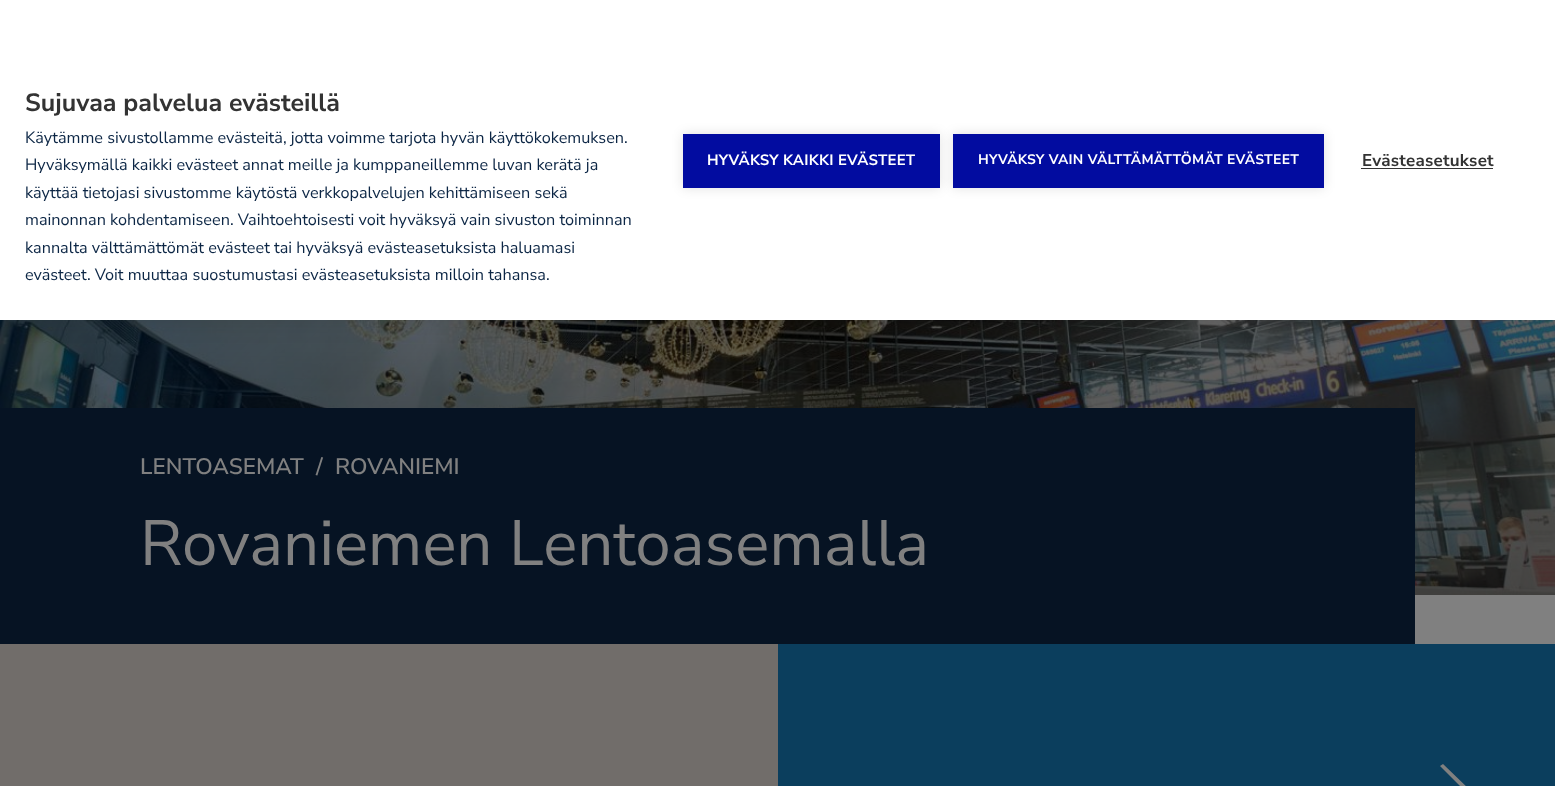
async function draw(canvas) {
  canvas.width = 1555
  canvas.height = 786
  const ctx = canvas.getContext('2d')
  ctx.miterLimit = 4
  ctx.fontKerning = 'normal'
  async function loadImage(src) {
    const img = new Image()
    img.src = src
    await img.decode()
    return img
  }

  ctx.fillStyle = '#808080'
  ctx.fillRect(0, 0, 1555, 786)
  ctx.drawImage(await loadImage('image0.png'), 0, 320, 1555, 275)
  ctx.fillStyle = '#0000001a'
  ctx.filter = 'blur(12.5px)'
  ctx.beginPath()
  ctx.rect(0, 0, 1555, 320)
  ctx.fill()
  ctx.filter = 'none'
  ctx.fillStyle = '#fff'
  ctx.fillRect(0, 0, 1555, 320)
  ctx.font = 'bold 25px Nunito Sans'
  ctx.fillStyle = '#333'
  ctx.fillText('Sujuvaa palvelua evästeillä', 25, 111)
  ctx.font = '16.25px Nunito Sans'
  ctx.fillStyle = '#0c2645'
  ctx.fillText('Käytämme sivustollamme evästeitä, jotta voimme tarjota hyvän käyttökokemuksen.', 25, 143)
  ctx.fillText('Hyväksymällä kaikki evästeet annat meille ja kumppaneillemme luvan kerätä ja', 25, 170)
  ctx.fillText('käyttää tietojasi sivustomme käytöstä verkkopalvelujen kehittämiseen sekä', 25, 198)
  ctx.fillText('mainonnan kohdentamiseen. Vaihtoehtoisesti voit hyväksyä vain sivuston toiminnan', 25, 225)
  ctx.fillText('kannalta välttämättömät evästeet tai hyväksyä evästeasetuksista haluamasi', 25, 253)
  ctx.fillText('evästeet. Voit muuttaa suostumustasi evästeasetuksista milloin tahansa.', 25, 280)
  ctx.fillStyle = '#0000001f'
  ctx.filter = 'blur(6px)'
  ctx.beginPath()
  ctx.rect(683, 134, 257, 54)
  ctx.fill()
  ctx.filter = 'none'
  ctx.fillStyle = '#020ca0'
  ctx.fillRect(683, 134, 257, 54)
  ctx.letterSpacing = '0.25px'
  ctx.font = 'bold 15px Nunito Sans'
  ctx.fillStyle = '#fff'
  ctx.fillText('HYVÄKSY KAIKKI EVÄSTEET', 707, 165)
  ctx.fillStyle = '#0000001f'
  ctx.filter = 'blur(6px)'
  ctx.beginPath()
  ctx.rect(953, 134, 371, 54)
  ctx.fill()
  ctx.filter = 'none'
  ctx.fillStyle = '#020ca0'
  ctx.fillRect(953, 134, 371, 54)
  ctx.font = 'bold 13.75px "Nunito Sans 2"'
  ctx.fillStyle = '#fff'
  ctx.fillText('HYVÄKSY VAIN VÄLTTÄMÄTTÖMÄT EVÄSTEET', 978, 164)
  ctx.font = 'bold 17px Nunito Sans'
  ctx.fillStyle = '#333'
  ctx.fillText('Evästeasetukset', 1362, 166)
  ctx.fillRect(1361, 168, 132, 1)
  ctx.fillStyle = '#061323'
  ctx.fillRect(0, 408, 1415, 236)
  ctx.letterSpacing = '0px'
  ctx.font = '600 22.5px Nunito Sans'
  ctx.fillStyle = '#808080'
  ctx.fillText('LENTOASEMAT', 140, 474)
  ctx.fillText('/', 316, 474)
  ctx.fillText('ROVANIEMI', 335, 474)
  ctx.font = '63.75px Nunito Sans'
  ctx.fillText('Rovaniemen Lentoasemalla', 140, 565)
  ctx.fillStyle = '#716d6a'
  ctx.fillRect(0, 644, 778, 142)
  ctx.fillStyle = '#0b3e5d'
  ctx.fillRect(778, 644, 777, 142)
  ctx.fillStyle = '#808080'
  ctx.beginPath()
  ctx.moveTo(1440, 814)
  ctx.lineTo(1443, 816)
  ctx.lineTo(1470, 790)
  ctx.lineTo(1443, 764)
  ctx.lineTo(1440, 766)
  ctx.lineTo(1464, 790)
  ctx.closePath()
  ctx.fill()
}

draw(document.querySelector('canvas'))
